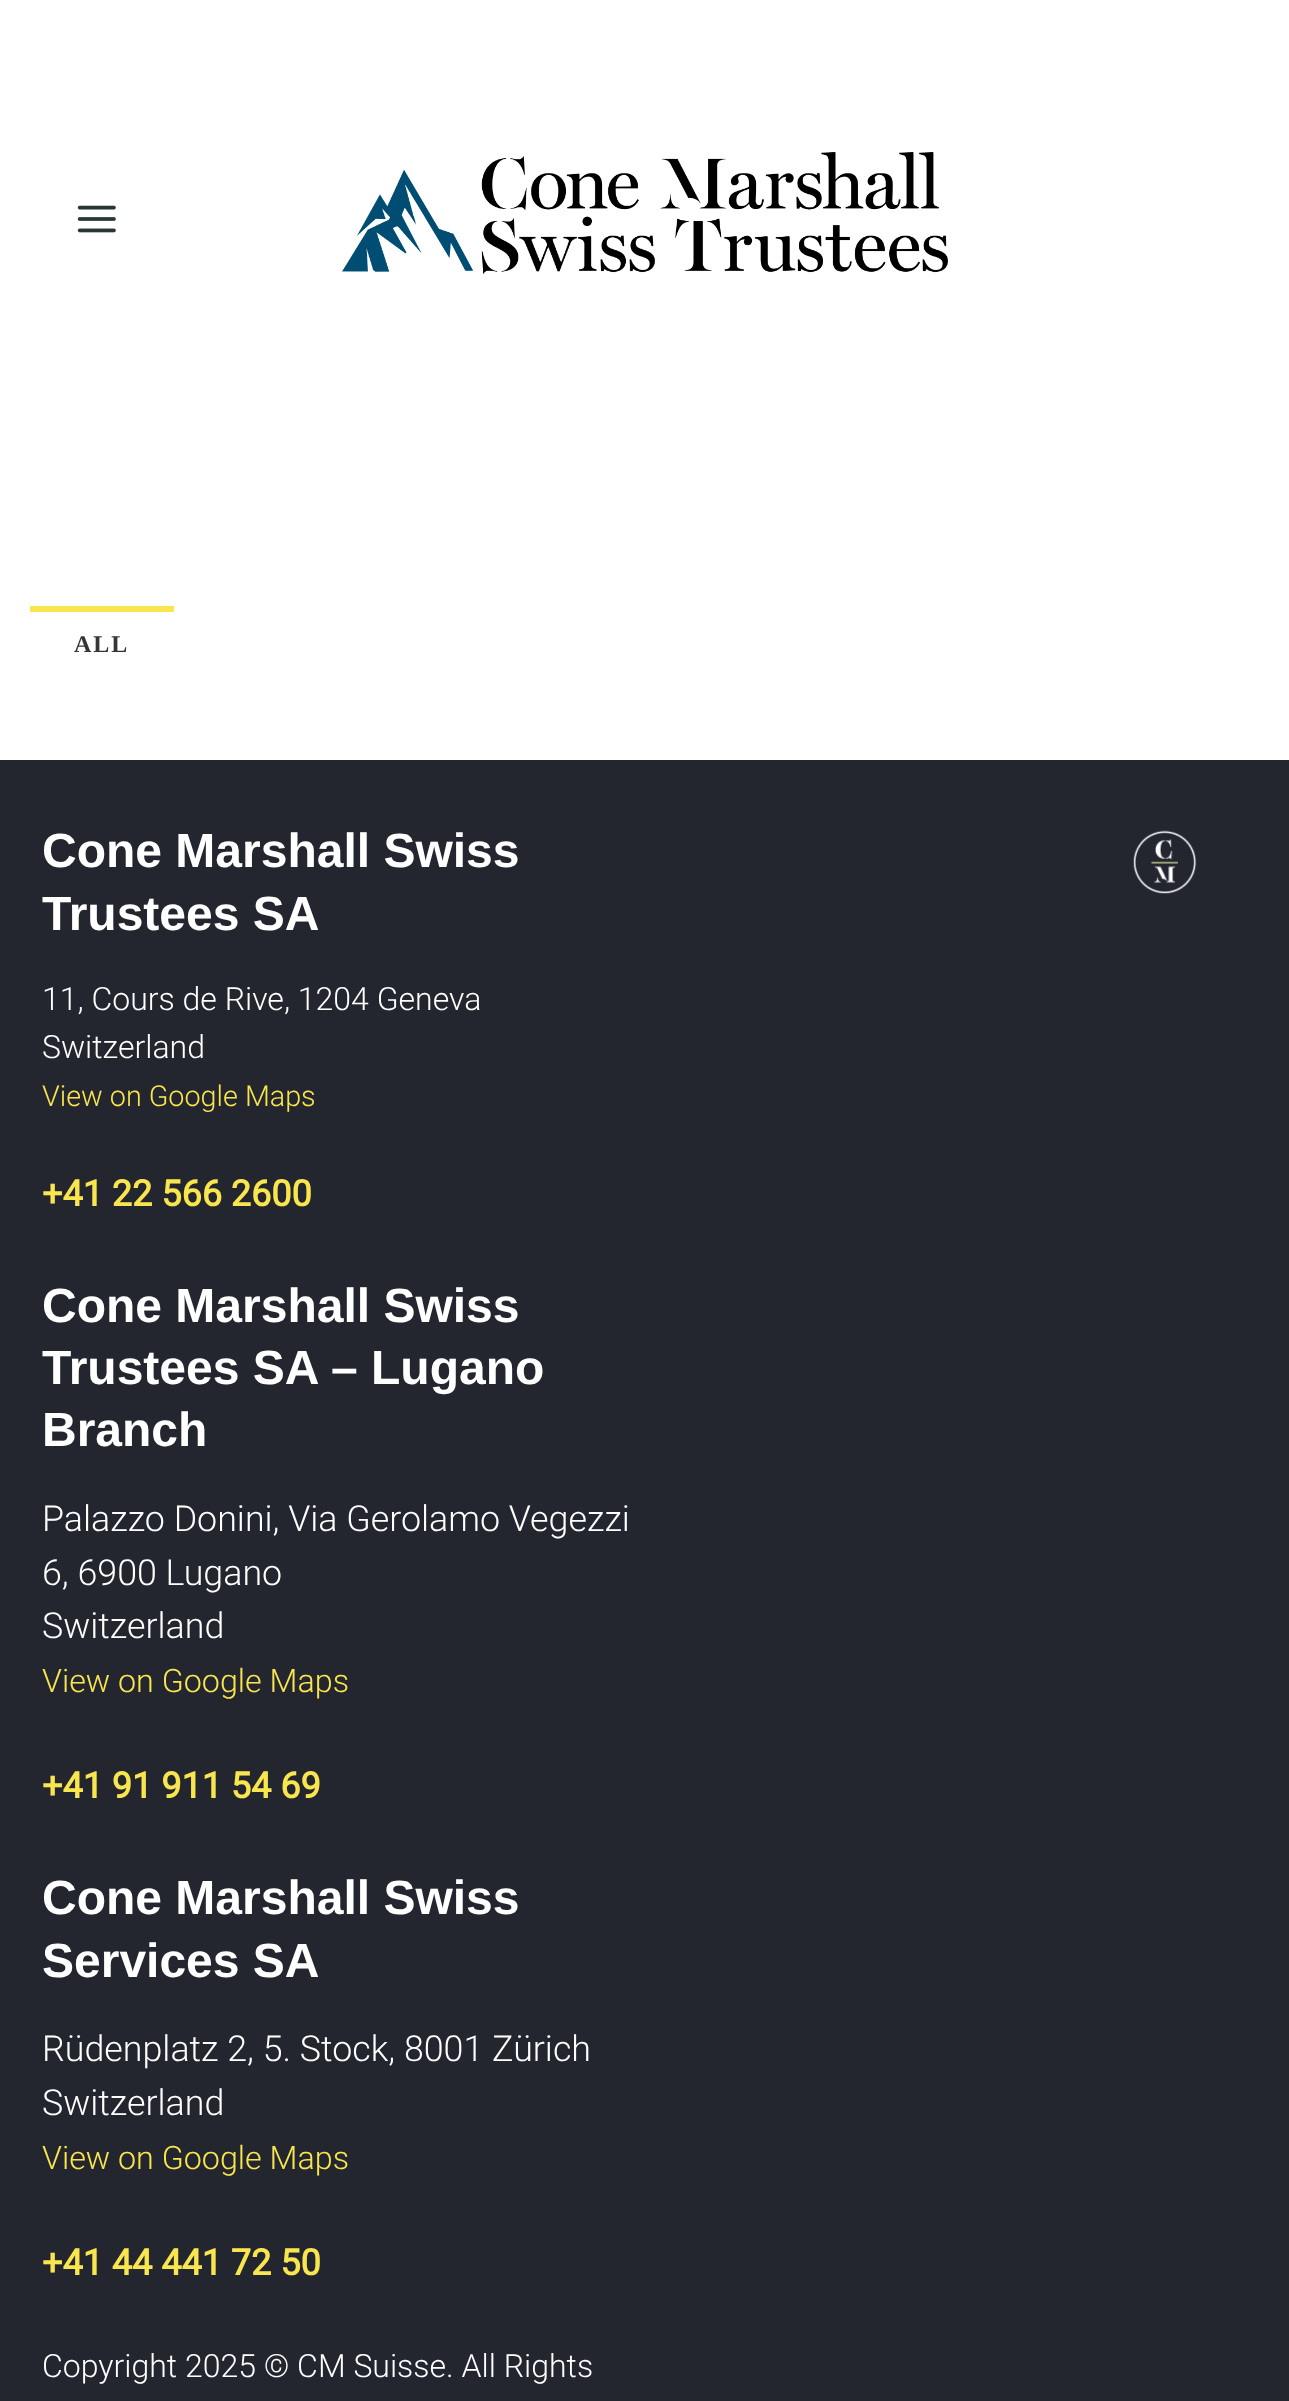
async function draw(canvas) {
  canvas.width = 1289
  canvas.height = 2401
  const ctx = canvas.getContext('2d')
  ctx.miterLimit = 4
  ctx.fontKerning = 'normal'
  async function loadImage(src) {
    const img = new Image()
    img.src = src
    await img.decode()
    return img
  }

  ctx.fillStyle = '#fff'
  ctx.fillRect(0, 0, 1289, 2401)
  ctx.drawImage(await loadImage('image0.png'), 77, 205, 39, 28)
  ctx.drawImage(await loadImage('image1.png'), 342, 152, 606, 122)
  ctx.fillStyle = '#f9e64f'
  ctx.fillRect(30, 606, 144, 6)
  ctx.letterSpacing = '2px'
  ctx.font = 'bold 24px Liberation Serif'
  ctx.fillStyle = '#353535'
  ctx.fillText('ALL', 74, 652)
  ctx.fillStyle = '#23262f'
  ctx.fillRect(0, 760, 1289, 1641)
  ctx.letterSpacing = '0px'
  ctx.font = 'bold 48px Liberation Sans'
  ctx.fillStyle = '#fff'
  ctx.fillText('Cone Marshall Swiss', 42, 867)
  ctx.fillText('Trustees SA', 42, 930)
  ctx.font = '300 32px Roboto'
  ctx.fillText('11, Cours de Rive, 1204 Geneva', 42, 1010)
  ctx.fillText('Switzerland', 42, 1058)
  ctx.font = '300 28.75px Roboto'
  ctx.fillStyle = '#f9e64f'
  ctx.fillText('View on Google Maps', 42, 1106)
  ctx.font = 'bold 36px Roboto'
  ctx.fillText('+41 22 566 2600', 42, 1206)
  ctx.font = 'bold 48px Liberation Sans'
  ctx.fillStyle = '#fff'
  ctx.fillText('Cone Marshall Swiss', 42, 1322)
  ctx.fillText('Trustees SA – Lugano', 42, 1384)
  ctx.fillText('Branch', 42, 1446)
  ctx.font = '300 35.8px Roboto'
  ctx.fillText('Palazzo Donini, Via Gerolamo Vegezzi', 42, 1531)
  ctx.fillText('6, 6900 Lugano', 42, 1585)
  ctx.fillText('Switzerland', 42, 1638)
  ctx.font = '300 32.25px Roboto'
  ctx.fillStyle = '#f9e64f'
  ctx.fillText('View on Google Maps', 42, 1692)
  ctx.font = 'bold 36px Roboto'
  ctx.fillText('+41 91 911 54 69', 42, 1798)
  ctx.font = 'bold 48px Liberation Sans'
  ctx.fillStyle = '#fff'
  ctx.fillText('Cone Marshall Swiss', 42, 1914)
  ctx.fillText('Services SA', 42, 1977)
  ctx.font = '300 35.8px Roboto'
  ctx.fillText('Rüdenplatz 2, 5. Stock, 8001 Zürich', 42, 2061)
  ctx.fillText('Switzerland', 42, 2115)
  ctx.font = '300 32.25px Roboto'
  ctx.fillStyle = '#f9e64f'
  ctx.fillText('View on Google Maps', 42, 2169)
  ctx.font = 'bold 36px Roboto'
  ctx.fillText('+41 44 441 72 50', 42, 2275)
  ctx.font = '300 32px Roboto'
  ctx.fillStyle = '#fff'
  ctx.fillText('Copyright 2025 © CM Suisse. All Rights', 42, 2377)
  ctx.drawImage(await loadImage('image2.png'), 1133, 830, 64, 64)
}

draw(document.querySelector('canvas'))
